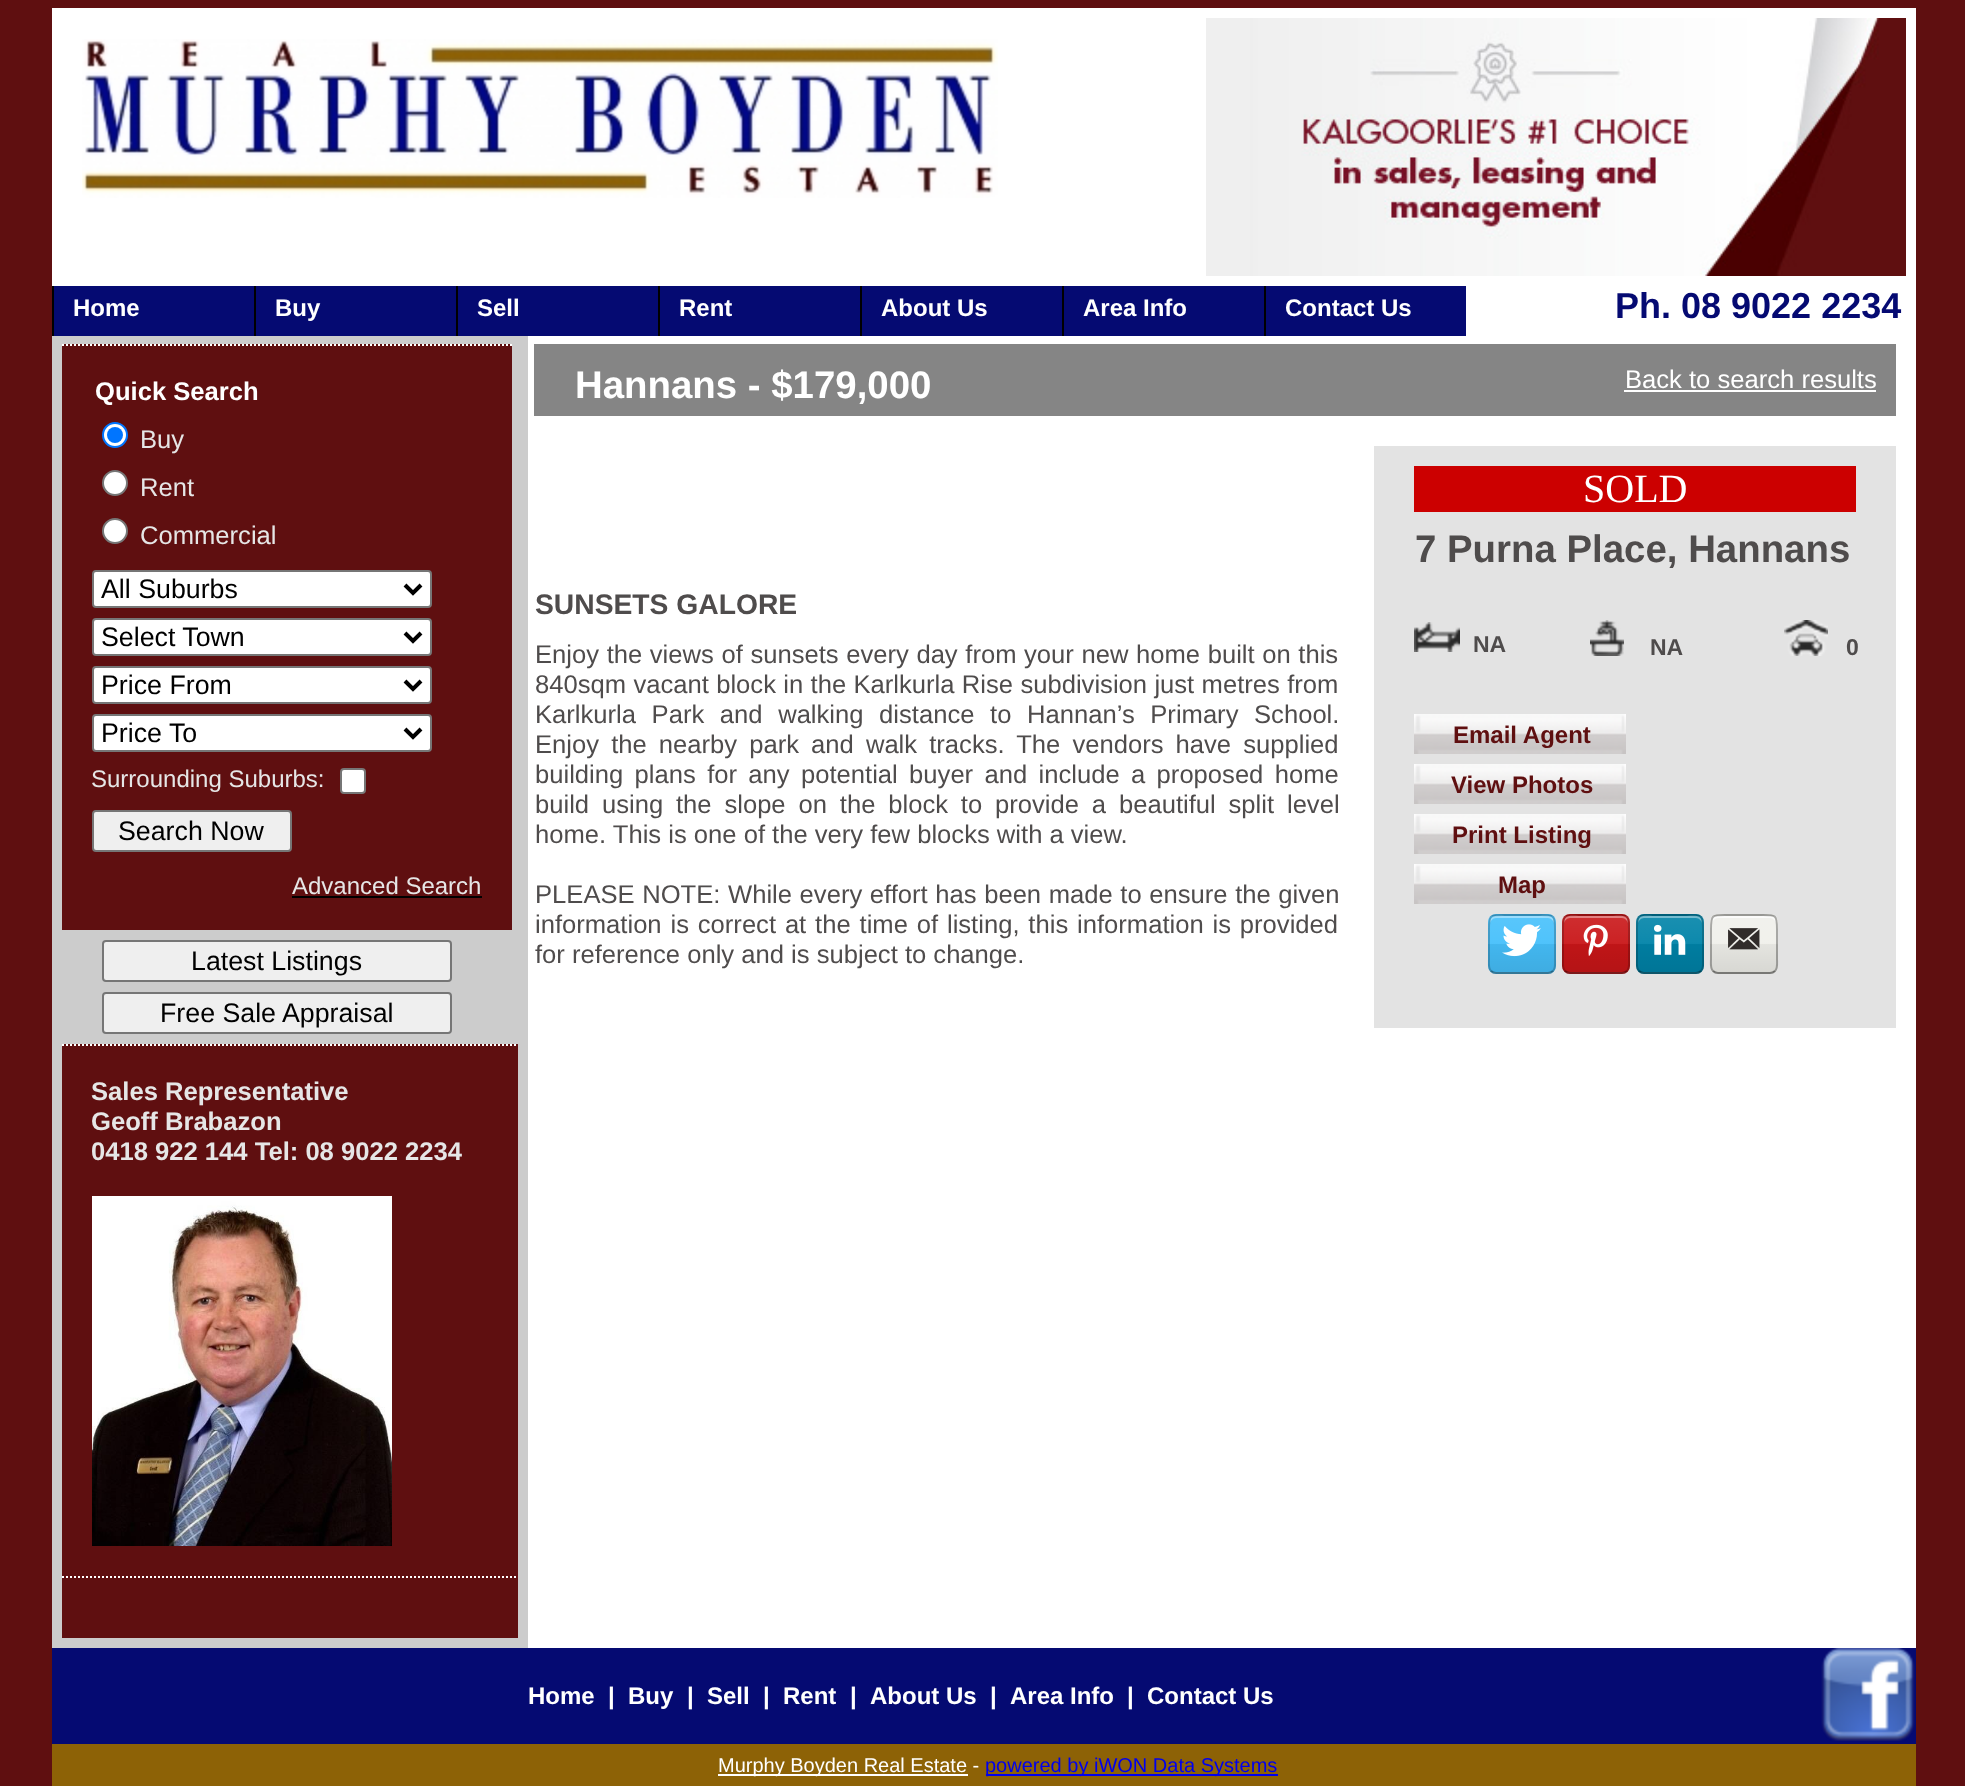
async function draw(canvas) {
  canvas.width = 1965
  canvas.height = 1786
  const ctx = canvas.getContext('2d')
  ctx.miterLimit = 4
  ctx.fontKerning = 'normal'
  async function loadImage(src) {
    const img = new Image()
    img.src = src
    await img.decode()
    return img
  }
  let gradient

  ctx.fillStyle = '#5f0f10'
  ctx.fillRect(0, 0, 1965, 1786)
  ctx.fillStyle = '#fff'
  ctx.fillRect(52, 8, 1864, 278)
  ctx.drawImage(await loadImage('image0.png'), 82, 39, 916, 159)
  ctx.drawImage(await loadImage('image1.png'), 1206, 18, 700, 258)
  ctx.fillRect(1466, 286, 450, 48)
  ctx.fillStyle = '#000'
  ctx.fillRect(52, 286, 2, 50)
  ctx.fillStyle = '#050a72'
  ctx.fillRect(54, 286, 200, 50)
  ctx.font = 'bold 24px Liberation Sans'
  ctx.fillStyle = '#fff'
  ctx.fillText('Home', 73, 316)
  ctx.fillStyle = '#000'
  ctx.fillRect(254, 286, 2, 50)
  ctx.fillStyle = '#050a72'
  ctx.fillRect(256, 286, 200, 50)
  ctx.fillStyle = '#fff'
  ctx.fillText('Buy', 275, 316)
  ctx.fillStyle = '#000'
  ctx.fillRect(456, 286, 2, 50)
  ctx.fillStyle = '#fff'
  ctx.fillRect(528, 334, 1388, 1314)
  ctx.fillStyle = '#050a72'
  ctx.fillRect(458, 286, 200, 50)
  ctx.fillStyle = '#fff'
  ctx.fillText('Sell', 477, 316)
  ctx.fillStyle = '#000'
  ctx.fillRect(658, 286, 2, 50)
  ctx.fillStyle = '#050a72'
  ctx.fillRect(660, 286, 200, 50)
  ctx.fillStyle = '#fff'
  ctx.fillText('Rent', 679, 316)
  ctx.fillStyle = '#000'
  ctx.fillRect(860, 286, 2, 50)
  ctx.fillStyle = '#050a72'
  ctx.fillRect(862, 286, 200, 50)
  ctx.fillStyle = '#fff'
  ctx.fillText('About Us', 881, 316)
  ctx.fillStyle = '#000'
  ctx.fillRect(1062, 286, 2, 50)
  ctx.fillStyle = '#050a72'
  ctx.fillRect(1064, 286, 200, 50)
  ctx.fillStyle = '#fff'
  ctx.fillText('Area Info', 1083, 316)
  ctx.fillStyle = '#000'
  ctx.fillRect(1264, 286, 2, 50)
  ctx.fillStyle = '#050a72'
  ctx.fillRect(1266, 286, 200, 50)
  ctx.fillStyle = '#fff'
  ctx.fillText('Contact Us', 1285, 316)
  ctx.font = 'bold 36px Liberation Sans'
  ctx.fillStyle = '#050a72'
  ctx.fillText('Ph. 08 9022 2234', 1615, 318)
  ctx.fillStyle = '#ccc'
  ctx.fillRect(52, 336, 476, 1312)
  ctx.fillStyle = '#5f0f10'
  ctx.fillRect(62, 344, 450, 586)
  ctx.beginPath()
  ctx.moveTo(62, 345)
  ctx.lineTo(512, 345)
  ctx.strokeStyle = '#fff'
  ctx.lineWidth = 2
  ctx.setLineDash([2, 2])
  ctx.stroke()
  ctx.font = 'bold 25.6px Liberation Sans'
  ctx.fillStyle = '#fff'
  ctx.fillText('Quick Search', 95, 400)
  ctx.beginPath()
  ctx.arc(115, 435, 12, 0, 2 * Math.PI)
  ctx.fill()
  ctx.strokeStyle = '#0075ff'
  ctx.setLineDash([])
  ctx.stroke()
  ctx.fillStyle = '#0075ff'
  ctx.beginPath()
  ctx.arc(115, 435, 8, 0, 2 * Math.PI)
  ctx.fill()
  ctx.font = '25.6px Liberation Sans'
  ctx.fillStyle = '#e6e6e6'
  ctx.fillText('Buy', 140, 448)
  ctx.fillStyle = '#fff'
  ctx.beginPath()
  ctx.arc(115, 483, 12, 0, 2 * Math.PI)
  ctx.fill()
  ctx.strokeStyle = '#767676'
  ctx.stroke()
  ctx.fillStyle = '#e6e6e6'
  ctx.fillText('Rent', 140, 496)
  ctx.fillStyle = '#fff'
  ctx.beginPath()
  ctx.arc(115, 531, 12, 0, 2 * Math.PI)
  ctx.fill()
  ctx.stroke()
  ctx.fillStyle = '#e6e6e6'
  ctx.fillText('Commercial', 140, 544)
  ctx.fillStyle = '#fff'
  ctx.beginPath()
  ctx.roundRect(93, 571, 338, 36, 3)
  ctx.fill()
  ctx.stroke()
  ctx.beginPath()
  ctx.moveTo(405, 585)
  ctx.lineTo(413, 593)
  ctx.lineTo(421, 585)
  ctx.strokeStyle = '#000'
  ctx.lineWidth = 4
  ctx.stroke()
  ctx.font = '26.75px Liberation Sans'
  ctx.fillStyle = '#000'
  ctx.fillText('All Suburbs', 101, 598)
  ctx.fillStyle = '#fff'
  ctx.beginPath()
  ctx.roundRect(93, 619, 338, 36, 3)
  ctx.fill()
  ctx.strokeStyle = '#767676'
  ctx.lineWidth = 2
  ctx.stroke()
  ctx.beginPath()
  ctx.moveTo(405, 633)
  ctx.lineTo(413, 641)
  ctx.lineTo(421, 633)
  ctx.strokeStyle = '#000'
  ctx.lineWidth = 4
  ctx.stroke()
  ctx.fillStyle = '#000'
  ctx.fillText('Select Town', 101, 646)
  ctx.fillStyle = '#fff'
  ctx.beginPath()
  ctx.roundRect(93, 667, 338, 36, 3)
  ctx.fill()
  ctx.strokeStyle = '#767676'
  ctx.lineWidth = 2
  ctx.stroke()
  ctx.beginPath()
  ctx.moveTo(405, 681)
  ctx.lineTo(413, 689)
  ctx.lineTo(421, 681)
  ctx.strokeStyle = '#000'
  ctx.lineWidth = 4
  ctx.stroke()
  ctx.fillStyle = '#000'
  ctx.fillText('Price From', 101, 694)
  ctx.fillStyle = '#fff'
  ctx.beginPath()
  ctx.roundRect(93, 715, 338, 36, 3)
  ctx.fill()
  ctx.strokeStyle = '#767676'
  ctx.lineWidth = 2
  ctx.stroke()
  ctx.beginPath()
  ctx.moveTo(405, 729)
  ctx.lineTo(413, 737)
  ctx.lineTo(421, 729)
  ctx.strokeStyle = '#000'
  ctx.lineWidth = 4
  ctx.stroke()
  ctx.fillStyle = '#000'
  ctx.fillText('Price To', 101, 742)
  ctx.font = '24px Liberation Sans'
  ctx.fillStyle = '#e6e6e6'
  ctx.fillText('Surrounding Suburbs:', 91, 787)
  ctx.fillStyle = '#fff'
  ctx.beginPath()
  ctx.roundRect(341, 769, 24, 24, 3)
  ctx.fill()
  ctx.strokeStyle = '#767676'
  ctx.lineWidth = 2
  ctx.stroke()
  ctx.fillStyle = '#efefef'
  ctx.beginPath()
  ctx.roundRect(93, 811, 198, 40, 3)
  ctx.fill()
  ctx.stroke()
  ctx.font = '26.75px Liberation Sans'
  ctx.fillStyle = '#000'
  ctx.fillText('Search Now', 118, 840)
  ctx.font = '24px Liberation Sans'
  ctx.fillStyle = '#e6e6e6'
  ctx.fillText('Advanced Search', 292, 894)
  ctx.fillStyle = '#000'
  ctx.fillRect(292, 896, 190, 2)
  ctx.fillStyle = '#efefef'
  ctx.beginPath()
  ctx.roundRect(103, 941, 348, 40, 3)
  ctx.fill()
  ctx.stroke()
  ctx.font = '26.75px Liberation Sans'
  ctx.fillStyle = '#000'
  ctx.fillText('Latest Listings', 191, 970)
  ctx.fillStyle = '#efefef'
  ctx.beginPath()
  ctx.roundRect(103, 993, 348, 40, 3)
  ctx.fill()
  ctx.stroke()
  ctx.fillStyle = '#000'
  ctx.fillText('Free Sale Appraisal', 160, 1022)
  ctx.fillStyle = '#5f0f10'
  ctx.fillRect(62, 1044, 456, 594)
  ctx.beginPath()
  ctx.moveTo(62, 1045)
  ctx.lineTo(518, 1045)
  ctx.strokeStyle = '#fff'
  ctx.setLineDash([2, 2])
  ctx.stroke()
  ctx.font = 'bold 25.6px Liberation Sans'
  ctx.fillStyle = '#e6e6e6'
  ctx.fillText('Sales Representative', 91, 1100)
  ctx.fillText('Geoff Brabazon', 91, 1130)
  ctx.fillText('0418 922 144 Tel: 08 9022 2234', 91, 1160)
  ctx.drawImage(await loadImage('image2.png'), 92, 1196, 300, 350)
  ctx.beginPath()
  ctx.moveTo(62, 1577)
  ctx.lineTo(518, 1577)
  ctx.stroke()
  ctx.fillStyle = '#858585'
  ctx.fillRect(534, 344, 1362, 72)
  ctx.font = 'bold 38.4px Liberation Sans'
  ctx.fillStyle = '#fff'
  ctx.fillText('Hannans - $179,000', 575, 398)
  ctx.font = '25.6px Liberation Sans'
  ctx.fillText('Back to search results', 1625, 388)
  ctx.fillRect(1624, 390, 252, 2)
  ctx.font = 'bold 28.25px Liberation Sans'
  ctx.fillStyle = '#4f4c4c'
  ctx.fillText('SUNSETS GALORE', 535, 614)
  ctx.wordSpacing = '0.5px'
  ctx.font = '25.6px Liberation Sans'
  ctx.fillText('Enjoy the views of sunsets every day from your new home built on this', 535, 663)
  ctx.wordSpacing = '0.25px'
  ctx.fillText('840sqm vacant block in the Karlkurla Rise subdivision just metres from', 535, 693)
  ctx.wordSpacing = '8.5px'
  ctx.fillText('Karlkurla Park and walking distance to Hannan’s Primary School.', 535, 723)
  ctx.wordSpacing = '5px'
  ctx.fillText('Enjoy the nearby park and walk tracks. The vendors have supplied', 535, 753)
  ctx.wordSpacing = '4.25px'
  ctx.fillText('building plans for any potential buyer and include a proposed home', 535, 783)
  ctx.wordSpacing = '5.75px'
  ctx.fillText('build using the slope on the block to provide a beautiful split level', 535, 813)
  ctx.wordSpacing = '0px'
  ctx.fillText('home. This is one of the very few blocks with a view.', 535, 843)
  ctx.wordSpacing = '0.5px'
  ctx.fillText('PLEASE NOTE: While every effort has been made to ensure the given', 535, 903)
  ctx.wordSpacing = '1.75px'
  ctx.fillText('information is correct at the time of listing, this information is provided', 535, 933)
  ctx.wordSpacing = '0px'
  ctx.fillText('for reference only and is subject to change.', 535, 963)
  ctx.fillStyle = '#e3e3e3'
  ctx.fillRect(1374, 446, 522, 582)
  ctx.fillStyle = '#c00'
  ctx.fillRect(1414, 466, 442, 46)
  ctx.font = '40px Liberation Serif'
  ctx.fillStyle = '#fff'
  ctx.fillText('SOLD', 1583, 502)
  ctx.font = 'bold 38.4px Liberation Sans'
  ctx.fillStyle = '#4f4c4c'
  ctx.fillText('7 Purna Place, Hannans', 1415, 562)
  ctx.drawImage(await loadImage('image3.png'), 1414, 622, 46, 30)
  ctx.font = 'bold 23px Liberation Sans'
  ctx.fillText('NA', 1473, 652)
  ctx.drawImage(await loadImage('image4.png'), 1590, 620, 34, 36)
  ctx.fillText('NA', 1650, 655)
  ctx.drawImage(await loadImage('image5.png'), 1784, 620, 44, 36)
  ctx.fillText('0', 1846, 655)
  ctx.drawImage(await loadImage('image6.png'), 1614, 714, 12, 40)
  ctx.drawImage(await loadImage('image7.png'), 1414, 714, 200, 40)
  ctx.font = 'bold 24px Liberation Sans'
  ctx.fillStyle = '#5f0f10'
  ctx.fillText('Email Agent', 1453, 743)
  ctx.drawImage(await loadImage('image6.png'), 1614, 764, 12, 40)
  ctx.drawImage(await loadImage('image7.png'), 1414, 764, 200, 40)
  ctx.fillText('View Photos', 1451, 793)
  ctx.drawImage(await loadImage('image6.png'), 1614, 814, 12, 40)
  ctx.drawImage(await loadImage('image7.png'), 1414, 814, 200, 40)
  ctx.fillText('Print Listing', 1452, 843)
  ctx.drawImage(await loadImage('image6.png'), 1614, 864, 12, 40)
  ctx.drawImage(await loadImage('image7.png'), 1414, 864, 200, 40)
  ctx.fillText('Map', 1498, 893)
  ctx.fillStyle = '#46c0fb'
  ctx.beginPath()
  ctx.roundRect(1488, 914, 68, 60, 8)
  ctx.fill()
  ctx.save()
  ctx.beginPath()
  ctx.roundRect(1488, 914, 68, 60, 8)
  ctx.clip()
  gradient = ctx.createLinearGradient(1522, 860, 1522, 916)
  gradient.addColorStop(0, '#ffffff1a')
  gradient.addColorStop(0.49, '#ffffff0d')
  gradient.addColorStop(0.51, '#0000000d')
  gradient.addColorStop(1, '#0000001a')
  ctx.fillStyle = gradient
  ctx.fillRect(1488, 914, 68, 2)
  gradient = ctx.createLinearGradient(1522, 916, 1522, 972)
  gradient.addColorStop(0, '#ffffff1a')
  gradient.addColorStop(0.49, '#ffffff0d')
  gradient.addColorStop(0.51, '#0000000d')
  gradient.addColorStop(1, '#0000001a')
  ctx.fillStyle = gradient
  ctx.fillRect(1488, 916, 68, 56)
  gradient = ctx.createLinearGradient(1522, 972, 1522, 1028)
  gradient.addColorStop(0, '#ffffff1a')
  gradient.addColorStop(0.49, '#ffffff0d')
  gradient.addColorStop(0.51, '#0000000d')
  gradient.addColorStop(1, '#0000001a')
  ctx.fillStyle = gradient
  ctx.fillRect(1488, 972, 68, 2)
  ctx.restore()
  ctx.fillStyle = '#9bddfd'
  ctx.beginPath()
  ctx.moveTo(1496, 918)
  ctx.lineTo(1548, 918)
  ctx.bezierCurveTo(1551, 918, 1554, 921, 1554, 924)
  ctx.bezierCurveTo(1554, 914, 1547, 916, 1539, 916)
  ctx.lineTo(1505, 916)
  ctx.bezierCurveTo(1497, 916, 1490, 914, 1490, 924)
  ctx.bezierCurveTo(1490, 921, 1493, 918, 1496, 918)
  ctx.closePath()
  ctx.fill()
  ctx.beginPath()
  ctx.moveTo(1553, 971)
  ctx.bezierCurveTo(1551.5, 972.5, 1550, 973, 1548, 973)
  ctx.lineTo(1496, 973)
  ctx.bezierCurveTo(1494, 973, 1492.5, 972.5, 1491, 971)
  ctx.strokeStyle = '#00000066'
  ctx.setLineDash([])
  ctx.stroke()
  ctx.beginPath()
  ctx.moveTo(1491, 971)
  ctx.bezierCurveTo(1488, 968, 1489, 962.5, 1489, 959)
  ctx.lineTo(1489, 929)
  ctx.bezierCurveTo(1489, 914.5, 1490, 915, 1504.5, 915)
  ctx.lineTo(1539.5, 915)
  ctx.bezierCurveTo(1554, 915, 1555, 914.5, 1555, 929)
  ctx.lineTo(1555, 959)
  ctx.bezierCurveTo(1555, 962.5, 1556, 968, 1553, 971)
  ctx.strokeStyle = '#00000033'
  ctx.stroke()
  ctx.drawImage(await loadImage('image8.png'), 1502, 924, 39, 33)
  ctx.fillStyle = '#c91618'
  ctx.beginPath()
  ctx.roundRect(1562, 914, 68, 60, 8)
  ctx.fill()
  ctx.save()
  ctx.beginPath()
  ctx.roundRect(1562, 914, 68, 60, 8)
  ctx.clip()
  gradient = ctx.createLinearGradient(1596, 860, 1596, 916)
  gradient.addColorStop(0, '#ffffff1a')
  gradient.addColorStop(0.49, '#ffffff0d')
  gradient.addColorStop(0.51, '#0000000d')
  gradient.addColorStop(1, '#0000001a')
  ctx.fillStyle = gradient
  ctx.fillRect(1562, 914, 68, 2)
  gradient = ctx.createLinearGradient(1596, 916, 1596, 972)
  gradient.addColorStop(0, '#ffffff1a')
  gradient.addColorStop(0.49, '#ffffff0d')
  gradient.addColorStop(0.51, '#0000000d')
  gradient.addColorStop(1, '#0000001a')
  ctx.fillStyle = gradient
  ctx.fillRect(1562, 916, 68, 56)
  gradient = ctx.createLinearGradient(1596, 972, 1596, 1028)
  gradient.addColorStop(0, '#ffffff1a')
  gradient.addColorStop(0.49, '#ffffff0d')
  gradient.addColorStop(0.51, '#0000000d')
  gradient.addColorStop(1, '#0000001a')
  ctx.fillStyle = gradient
  ctx.fillRect(1562, 972, 68, 2)
  ctx.restore()
  ctx.fillStyle = '#e28182'
  ctx.beginPath()
  ctx.moveTo(1570, 918)
  ctx.lineTo(1622, 918)
  ctx.bezierCurveTo(1625, 918, 1628, 921, 1628, 924)
  ctx.bezierCurveTo(1628, 914, 1621, 916, 1613, 916)
  ctx.lineTo(1579, 916)
  ctx.bezierCurveTo(1571, 916, 1564, 914, 1564, 924)
  ctx.bezierCurveTo(1564, 921, 1567, 918, 1570, 918)
  ctx.closePath()
  ctx.fill()
  ctx.beginPath()
  ctx.moveTo(1627, 971)
  ctx.bezierCurveTo(1625.5, 972.5, 1624, 973, 1622, 973)
  ctx.lineTo(1570, 973)
  ctx.bezierCurveTo(1568, 973, 1566.5, 972.5, 1565, 971)
  ctx.strokeStyle = '#00000066'
  ctx.stroke()
  ctx.beginPath()
  ctx.moveTo(1565, 971)
  ctx.bezierCurveTo(1562, 968, 1563, 962.5, 1563, 959)
  ctx.lineTo(1563, 929)
  ctx.bezierCurveTo(1563, 914.5, 1564, 915, 1578.5, 915)
  ctx.lineTo(1613.5, 915)
  ctx.bezierCurveTo(1628, 915, 1629, 914.5, 1629, 929)
  ctx.lineTo(1629, 959)
  ctx.bezierCurveTo(1629, 962.5, 1630, 968, 1627, 971)
  ctx.strokeStyle = '#00000033'
  ctx.stroke()
  ctx.drawImage(await loadImage('image9.png'), 1583, 924, 25, 32)
  ctx.fillStyle = '#0083a8'
  ctx.beginPath()
  ctx.roundRect(1636, 914, 68, 60, 8)
  ctx.fill()
  ctx.save()
  ctx.beginPath()
  ctx.roundRect(1636, 914, 68, 60, 8)
  ctx.clip()
  gradient = ctx.createLinearGradient(1670, 860, 1670, 916)
  gradient.addColorStop(0, '#ffffff1a')
  gradient.addColorStop(0.49, '#ffffff0d')
  gradient.addColorStop(0.51, '#0000000d')
  gradient.addColorStop(1, '#0000001a')
  ctx.fillStyle = gradient
  ctx.fillRect(1636, 914, 68, 2)
  gradient = ctx.createLinearGradient(1670, 916, 1670, 972)
  gradient.addColorStop(0, '#ffffff1a')
  gradient.addColorStop(0.49, '#ffffff0d')
  gradient.addColorStop(0.51, '#0000000d')
  gradient.addColorStop(1, '#0000001a')
  ctx.fillStyle = gradient
  ctx.fillRect(1636, 916, 68, 56)
  gradient = ctx.createLinearGradient(1670, 972, 1670, 1028)
  gradient.addColorStop(0, '#ffffff1a')
  gradient.addColorStop(0.49, '#ffffff0d')
  gradient.addColorStop(0.51, '#0000000d')
  gradient.addColorStop(1, '#0000001a')
  ctx.fillStyle = gradient
  ctx.fillRect(1636, 972, 68, 2)
  ctx.restore()
  ctx.fillStyle = '#75bcd0'
  ctx.beginPath()
  ctx.moveTo(1644, 918)
  ctx.lineTo(1696, 918)
  ctx.bezierCurveTo(1699, 918, 1702, 921, 1702, 924)
  ctx.bezierCurveTo(1702, 914, 1695, 916, 1687, 916)
  ctx.lineTo(1653, 916)
  ctx.bezierCurveTo(1645, 916, 1638, 914, 1638, 924)
  ctx.bezierCurveTo(1638, 921, 1641, 918, 1644, 918)
  ctx.closePath()
  ctx.fill()
  ctx.beginPath()
  ctx.moveTo(1701, 971)
  ctx.bezierCurveTo(1699.5, 972.5, 1698, 973, 1696, 973)
  ctx.lineTo(1644, 973)
  ctx.bezierCurveTo(1642, 973, 1640.5, 972.5, 1639, 971)
  ctx.strokeStyle = '#00000066'
  ctx.stroke()
  ctx.beginPath()
  ctx.moveTo(1639, 971)
  ctx.bezierCurveTo(1636, 968, 1637, 962.5, 1637, 959)
  ctx.lineTo(1637, 929)
  ctx.bezierCurveTo(1637, 914.5, 1638, 915, 1652.5, 915)
  ctx.lineTo(1687.5, 915)
  ctx.bezierCurveTo(1702, 915, 1703, 914.5, 1703, 929)
  ctx.lineTo(1703, 959)
  ctx.bezierCurveTo(1703, 962.5, 1704, 968, 1701, 971)
  ctx.strokeStyle = '#00000033'
  ctx.stroke()
  ctx.drawImage(await loadImage('image10.png'), 1654, 924, 32, 31)
  ctx.fillStyle = '#f0f0eb'
  ctx.beginPath()
  ctx.roundRect(1710, 914, 68, 60, 8)
  ctx.fill()
  ctx.save()
  ctx.beginPath()
  ctx.roundRect(1710, 914, 68, 60, 8)
  ctx.clip()
  gradient = ctx.createLinearGradient(1744, 860, 1744, 916)
  gradient.addColorStop(0, '#ffffff1a')
  gradient.addColorStop(0.49, '#ffffff0d')
  gradient.addColorStop(0.51, '#0000000d')
  gradient.addColorStop(1, '#0000001a')
  ctx.fillStyle = gradient
  ctx.fillRect(1710, 914, 68, 2)
  gradient = ctx.createLinearGradient(1744, 916, 1744, 972)
  gradient.addColorStop(0, '#ffffff1a')
  gradient.addColorStop(0.49, '#ffffff0d')
  gradient.addColorStop(0.51, '#0000000d')
  gradient.addColorStop(1, '#0000001a')
  ctx.fillStyle = gradient
  ctx.fillRect(1710, 916, 68, 56)
  ctx.restore()
  ctx.fillStyle = '#fbfbfa'
  ctx.beginPath()
  ctx.moveTo(1718, 918)
  ctx.lineTo(1770, 918)
  ctx.bezierCurveTo(1773, 918, 1776, 921, 1776, 924)
  ctx.bezierCurveTo(1776, 914, 1769, 916, 1761, 916)
  ctx.lineTo(1727, 916)
  ctx.bezierCurveTo(1719, 916, 1712, 914, 1712, 924)
  ctx.bezierCurveTo(1712, 921, 1715, 918, 1718, 918)
  ctx.closePath()
  ctx.fill()
  ctx.beginPath()
  ctx.moveTo(1775, 971)
  ctx.bezierCurveTo(1773.5, 972.5, 1772, 973, 1770, 973)
  ctx.lineTo(1718, 973)
  ctx.bezierCurveTo(1716, 973, 1714.5, 972.5, 1713, 971)
  ctx.strokeStyle = '#00000080'
  ctx.stroke()
  ctx.beginPath()
  ctx.moveTo(1713, 971)
  ctx.bezierCurveTo(1710, 968, 1711, 962.5, 1711, 959)
  ctx.lineTo(1711, 929)
  ctx.bezierCurveTo(1711, 914.5, 1712, 915, 1726.5, 915)
  ctx.lineTo(1761.5, 915)
  ctx.bezierCurveTo(1776, 915, 1777, 914.5, 1777, 929)
  ctx.lineTo(1777, 959)
  ctx.bezierCurveTo(1777, 962.5, 1778, 968, 1775, 971)
  ctx.strokeStyle = '#0000004d'
  ctx.stroke()
  ctx.drawImage(await loadImage('image11.png'), 1728, 928, 32, 22)
  ctx.fillStyle = '#050a72'
  ctx.fillRect(52, 1648, 1864, 96)
  ctx.fillStyle = '#fff'
  ctx.fillText('Home', 528, 1704)
  ctx.fillText('|', 608, 1704)
  ctx.fillText('Buy', 628, 1704)
  ctx.fillText('|', 687, 1704)
  ctx.fillText('Sell', 707, 1704)
  ctx.fillText('|', 763, 1704)
  ctx.fillText('Rent', 783, 1704)
  ctx.fillText('|', 850, 1704)
  ctx.fillText('About Us', 870, 1704)
  ctx.fillText('|', 990, 1704)
  ctx.fillText('Area Info', 1010, 1704)
  ctx.fillText('|', 1127, 1704)
  ctx.fillText('Contact Us', 1147, 1704)
  ctx.drawImage(await loadImage('image12.png'), 1821, 1648, 94, 93)
  ctx.fillStyle = '#8d6206'
  ctx.fillRect(52, 1744, 1864, 42)
  ctx.fillStyle = '#fff'
  ctx.fillRect(718, 1774, 250, 2)
  ctx.font = '20px Liberation Sans'
  ctx.fillText('Murphy Boyden Real Estate -', 718, 1772)
  ctx.fillStyle = '#00e'
  ctx.fillRect(986, 1774, 292, 2)
  ctx.fillText('powered by iWON Data Systems', 985, 1772)
}

draw(document.querySelector('canvas'))
